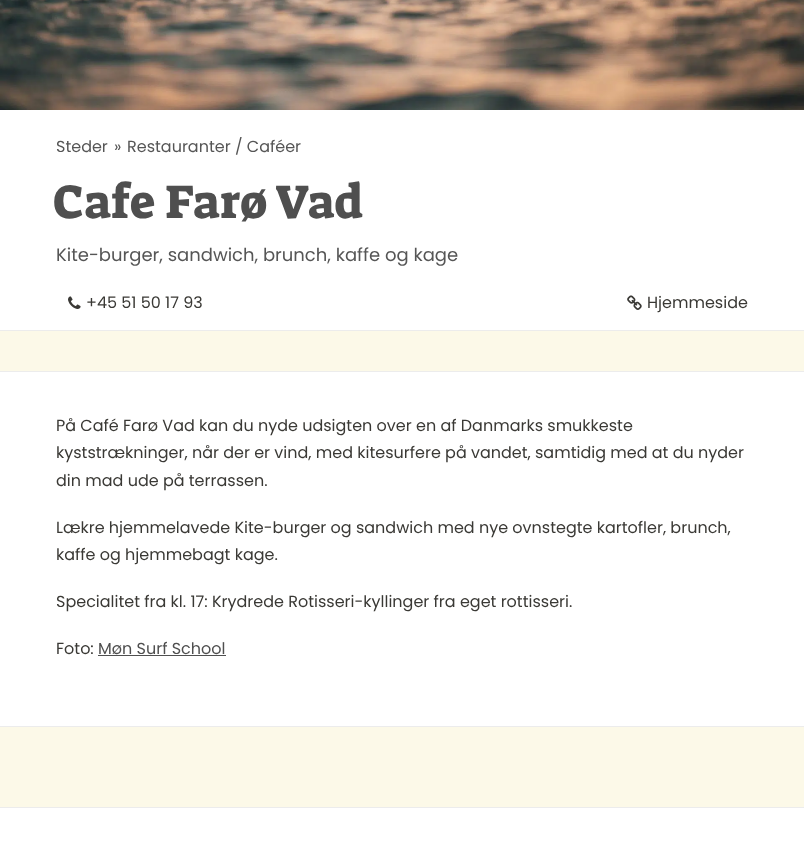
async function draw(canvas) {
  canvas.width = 804
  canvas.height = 857
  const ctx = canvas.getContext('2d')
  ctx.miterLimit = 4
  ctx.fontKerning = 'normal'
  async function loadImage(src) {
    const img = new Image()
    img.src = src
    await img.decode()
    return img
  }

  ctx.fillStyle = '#fcf9e8'
  ctx.fillRect(0, 0, 804, 857)
  ctx.drawImage(await loadImage('image0.png'), 0, 0, 804, 110)
  ctx.fillStyle = '#fff'
  ctx.fillRect(0, 110, 804, 220)
  ctx.fillStyle = '#ececec'
  ctx.fillRect(0, 330, 804, 1)
  ctx.font = '16px Poppins'
  ctx.fillStyle = '#565656'
  ctx.fillText('Steder', 56, 152)
  ctx.fillText('»', 114, 152)
  ctx.fillText('Restauranter / Caféer', 127, 152)
  ctx.font = '48px Suez One'
  ctx.fillStyle = '#4f4f4f'
  ctx.fillText('Cafe Farø Vad', 53, 218)
  ctx.font = '18px Poppins'
  ctx.fillStyle = '#565656'
  ctx.fillText('Kite-burger, sandwich, brunch, kaffe og kage', 56, 261)
  ctx.drawImage(await loadImage('image1.png'), 68, 296, 13, 13)
  ctx.font = '16px Poppins'
  ctx.fillStyle = '#3a3935'
  ctx.fillText('+45 51 50 17 93', 86, 308)
  ctx.drawImage(await loadImage('image2.png'), 627, 295, 15, 15)
  ctx.fillText('Hjemmeside', 647, 308)
  ctx.fillStyle = '#fff'
  ctx.fillRect(0, 372, 804, 354)
  ctx.fillStyle = '#ececec'
  ctx.fillRect(0, 371, 804, 1)
  ctx.fillRect(0, 726, 804, 1)
  ctx.fillStyle = '#3a3935'
  ctx.fillText('På Café Farø Vad kan du nyde udsigten over en af Danmarks smukkeste', 56, 431)
  ctx.fillText('kyststrækninger, når der er vind, med kitesurfere på vandet, samtidig med at du nyder', 56, 458)
  ctx.fillText('din mad ude på terrassen.', 56, 486)
  ctx.fillText('Lækre hjemmelavede Kite-burger og sandwich med nye ovnstegte kartofler, brunch,', 56, 533)
  ctx.fillText('kaffe og hjemmebagt kage.', 56, 560)
  ctx.fillText('Specialitet fra kl. 17: Krydrede Rotisseri-kyllinger fra eget rottisseri.', 56, 607)
  ctx.fillText('Foto:', 56, 654)
  ctx.fillStyle = '#4f4f4f'
  ctx.fillText('Møn Surf School', 98, 654)
  ctx.fillRect(98, 655, 128, 1)
  ctx.fillStyle = '#fff'
  ctx.fillRect(0, 808, 804, 49)
  ctx.fillStyle = '#ececec'
  ctx.fillRect(0, 807, 804, 1)
}

draw(document.querySelector('canvas'))
